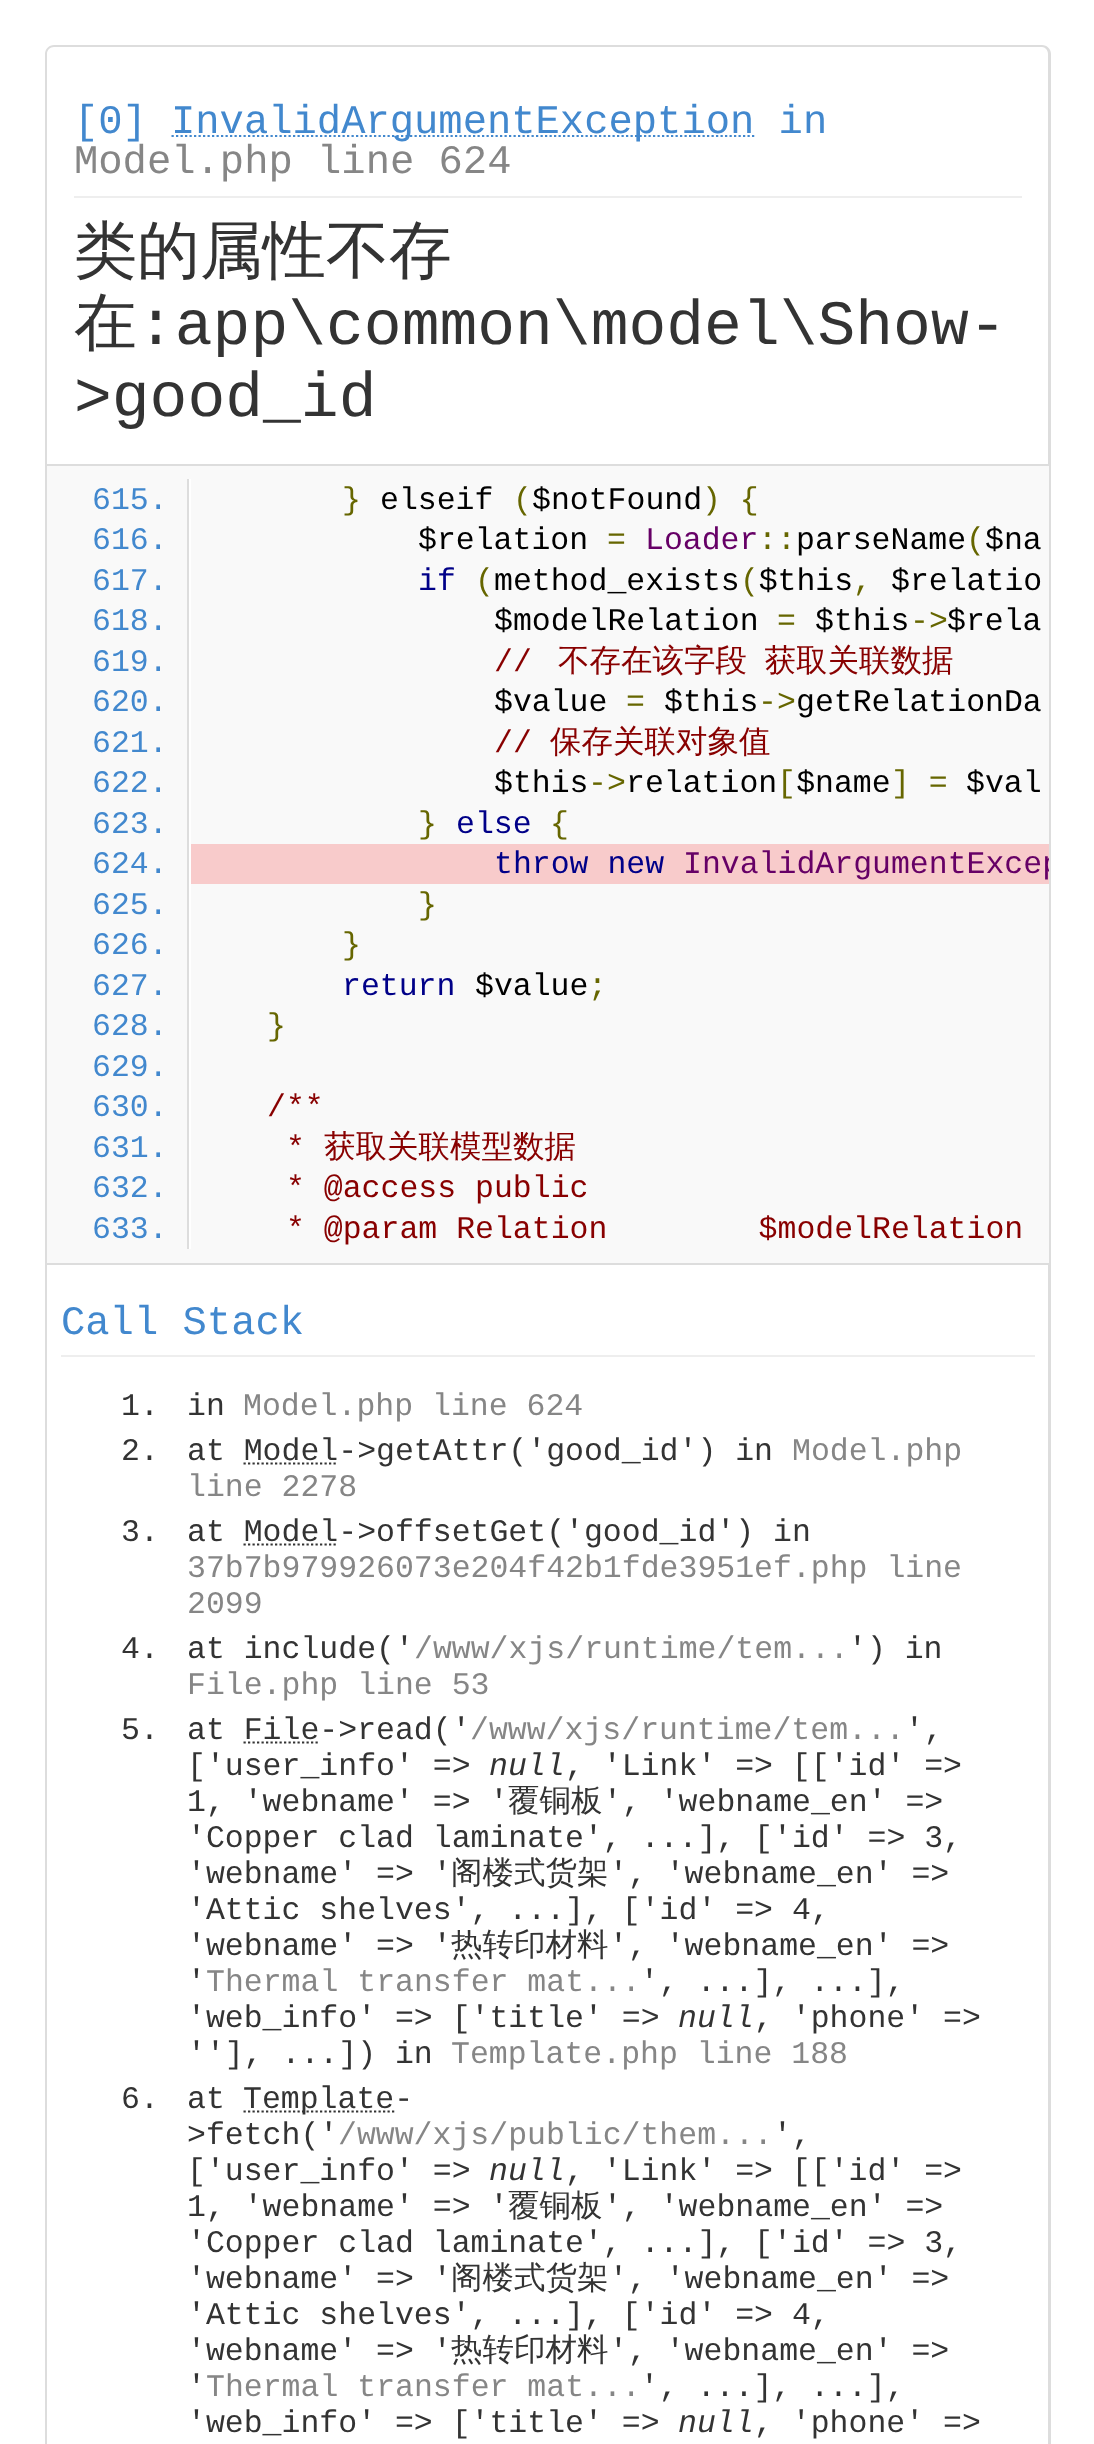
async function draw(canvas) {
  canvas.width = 1094
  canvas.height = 2444
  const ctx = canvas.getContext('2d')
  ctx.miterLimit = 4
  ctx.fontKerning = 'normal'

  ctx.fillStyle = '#fff'
  ctx.fillRect(0, 0, 1094, 2444)
  ctx.fillStyle = '#ddd'
  ctx.beginPath()
  ctx.moveTo(54, 45)
  ctx.lineTo(1042, 45)
  ctx.bezierCurveTo(1047, 45, 1051, 49, 1051, 54)
  ctx.lineTo(1051, 464)
  ctx.lineTo(45, 464)
  ctx.lineTo(45, 54)
  ctx.bezierCurveTo(45, 49, 49, 45, 54, 45)
  ctx.closePath()
  ctx.moveTo(54, 47)
  ctx.lineTo(1042, 47)
  ctx.bezierCurveTo(1045, 47, 1048, 50, 1048, 54)
  ctx.lineTo(1048, 464)
  ctx.lineTo(47, 464)
  ctx.lineTo(47, 54)
  ctx.bezierCurveTo(47, 50, 50, 47, 54, 47)
  ctx.closePath()
  ctx.fill('evenodd')
  ctx.fillStyle = '#eee'
  ctx.fillRect(74, 196, 948, 2)
  ctx.font = '40.5px Liberation Mono'
  ctx.fillStyle = '#4288ce'
  ctx.fillText('[0]', 74, 133)
  ctx.beginPath()
  ctx.moveTo(171.5, 136)
  ctx.lineTo(755, 136)
  ctx.strokeStyle = '#4288ce'
  ctx.lineWidth = 2.2
  ctx.setLineDash([2.25, 2.25])
  ctx.stroke()
  ctx.fillText('InvalidArgumentException in', 171, 133)
  ctx.fillStyle = '#868686'
  ctx.fillText('Model.php line 624', 74, 173)
  ctx.font = '500 63px WenQuanYi Zen Hei'
  ctx.fillStyle = '#333'
  ctx.fillText('类的属性不存', 74, 272)
  ctx.fillText('在', 74, 344)
  ctx.font = '63px Liberation Mono'
  ctx.fillText(':app\\common\\model\\Show-', 137, 344)
  ctx.fillText('>good_id', 74, 416)
  ctx.fillStyle = '#ddd'
  ctx.beginPath()
  ctx.moveTo(45, 1264)
  ctx.lineTo(1051, 1264)
  ctx.lineTo(1051, 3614)
  ctx.bezierCurveTo(1051, 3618, 1047, 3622, 1042, 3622)
  ctx.lineTo(54, 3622)
  ctx.bezierCurveTo(49, 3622, 45, 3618, 45, 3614)
  ctx.closePath()
  ctx.moveTo(47, 1264)
  ctx.lineTo(1048, 1264)
  ctx.lineTo(1048, 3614)
  ctx.bezierCurveTo(1048, 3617, 1045, 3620, 1042, 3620)
  ctx.lineTo(54, 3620)
  ctx.bezierCurveTo(50, 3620, 47, 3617, 47, 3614)
  ctx.closePath()
  ctx.fill('evenodd')
  ctx.fillStyle = '#f9f9f9'
  ctx.beginPath()
  ctx.rect(46, 465, 1004, 799)
  ctx.fill()
  ctx.strokeStyle = '#ddd'
  ctx.lineWidth = 2
  ctx.setLineDash([])
  ctx.stroke()
  ctx.fillStyle = '#ddd'
  ctx.fillRect(187, 479, 2, 770)
  ctx.font = '31.5px Liberation Mono'
  ctx.fillStyle = '#4288ce'
  ctx.fillText('615.', 92, 509)
  ctx.fillStyle = '#fff'
  ctx.fillRect(189, 479, 2, 770)
  ctx.fillStyle = '#660'
  ctx.fillText('}', 342, 509)
  ctx.fillStyle = '#000'
  ctx.fillText('elseif', 380, 509)
  ctx.fillStyle = '#660'
  ctx.fillText('(', 513, 509)
  ctx.fillStyle = '#000'
  ctx.fillText('$notFound', 532, 509)
  ctx.fillStyle = '#660'
  ctx.fillText(') {', 702, 509)
  ctx.fillStyle = '#4288ce'
  ctx.fillText('616.', 92, 549)
  ctx.fillStyle = '#000'
  ctx.fillText('$relation', 418, 549)
  ctx.fillStyle = '#606'
  ctx.fillText('Loader', 645, 549)
  ctx.fillStyle = '#000'
  ctx.fillText('parseName $na', 796, 549)
  ctx.fillStyle = '#660'
  ctx.fillText('=', 607, 549)
  ctx.fillText('::', 758, 549)
  ctx.fillText('(', 966, 549)
  ctx.fillStyle = '#4288ce'
  ctx.fillText('617.', 92, 590)
  ctx.fillStyle = '#008'
  ctx.fillText('if', 418, 590)
  ctx.fillStyle = '#660'
  ctx.fillText('(', 475, 590)
  ctx.fillStyle = '#000'
  ctx.fillText('method_exists $this', 494, 590)
  ctx.fillStyle = '#660'
  ctx.fillText('(', 740, 590)
  ctx.fillText(',', 853, 590)
  ctx.fillStyle = '#000'
  ctx.fillText('$relatio', 891, 590)
  ctx.fillStyle = '#4288ce'
  ctx.fillText('618.', 92, 630)
  ctx.fillStyle = '#000'
  ctx.fillText('$modelRelation', 494, 630)
  ctx.fillStyle = '#660'
  ctx.fillText('=', 777, 630)
  ctx.fillStyle = '#000'
  ctx.fillText('$this', 815, 630)
  ctx.fillStyle = '#660'
  ctx.fillText('->', 910, 630)
  ctx.fillStyle = '#000'
  ctx.fillText('$rela', 947, 630)
  ctx.fillStyle = '#4288ce'
  ctx.fillText('619.', 92, 671)
  ctx.fillStyle = '#800'
  ctx.fillText('//', 494, 671)
  ctx.wordSpacing = '8px'
  ctx.font = '500 31.5px WenQuanYi Zen Hei'
  ctx.fillText('不存在该字段 获取关联数据', 558, 671)
  ctx.wordSpacing = '0px'
  ctx.font = '31.5px Liberation Mono'
  ctx.fillStyle = '#4288ce'
  ctx.fillText('620.', 92, 711)
  ctx.fillStyle = '#000'
  ctx.fillText('$value', 494, 711)
  ctx.fillStyle = '#660'
  ctx.fillText('=', 626, 711)
  ctx.fillStyle = '#000'
  ctx.fillText('$this', 664, 711)
  ctx.fillStyle = '#660'
  ctx.fillText('->', 758, 711)
  ctx.fillStyle = '#000'
  ctx.fillText('getRelationDa', 796, 711)
  ctx.fillStyle = '#4288ce'
  ctx.fillText('621.', 92, 752)
  ctx.fillStyle = '#800'
  ctx.fillText('//', 494, 752)
  ctx.font = '500 31.5px WenQuanYi Zen Hei'
  ctx.fillText('保存关联对象值', 550, 752)
  ctx.font = '31.5px Liberation Mono'
  ctx.fillStyle = '#4288ce'
  ctx.fillText('622.', 92, 792)
  ctx.fillStyle = '#000'
  ctx.fillText('$this', 494, 792)
  ctx.fillText('relation $name', 626, 792)
  ctx.fillStyle = '#660'
  ctx.fillText('->', 588, 792)
  ctx.fillText('[', 777, 792)
  ctx.fillText('] =', 891, 792)
  ctx.fillStyle = '#000'
  ctx.fillText('$val', 966, 792)
  ctx.fillStyle = '#4288ce'
  ctx.fillText('623.', 92, 833)
  ctx.fillStyle = '#660'
  ctx.fillText('}', 418, 833)
  ctx.fillStyle = '#008'
  ctx.fillText('else', 456, 833)
  ctx.fillStyle = '#660'
  ctx.fillText('{', 550, 833)
  ctx.fillStyle = '#f8cbcb'
  ctx.fillRect(191, 844, 858, 40)
  ctx.fillStyle = '#4288ce'
  ctx.fillText('624.', 92, 873)
  ctx.fillStyle = '#008'
  ctx.fillText('throw new', 494, 873)
  ctx.save()
  ctx.beginPath()
  ctx.rect(47, 466, 1002, 796)
  ctx.clip()
  ctx.fillStyle = '#606'
  ctx.fillText('InvalidArgumentExcep', 683, 873)
  ctx.restore()
  ctx.fillStyle = '#4288ce'
  ctx.fillText('625.', 92, 914)
  ctx.fillStyle = '#660'
  ctx.fillText('}', 418, 914)
  ctx.fillStyle = '#4288ce'
  ctx.fillText('626.', 92, 954)
  ctx.fillStyle = '#660'
  ctx.fillText('}', 342, 954)
  ctx.fillStyle = '#4288ce'
  ctx.fillText('627.', 92, 995)
  ctx.fillStyle = '#008'
  ctx.fillText('return', 342, 995)
  ctx.fillStyle = '#000'
  ctx.fillText('$value', 475, 995)
  ctx.fillStyle = '#660'
  ctx.fillText(';', 588, 995)
  ctx.fillStyle = '#4288ce'
  ctx.fillText('628.', 92, 1035)
  ctx.fillStyle = '#660'
  ctx.fillText('}', 267, 1035)
  ctx.fillStyle = '#4288ce'
  ctx.fillText('629.', 92, 1076)
  ctx.fillText('630.', 92, 1116)
  ctx.fillStyle = '#800'
  ctx.fillText('/**', 267, 1116)
  ctx.fillStyle = '#4288ce'
  ctx.fillText('631.', 92, 1157)
  ctx.fillStyle = '#800'
  ctx.fillText('*', 286, 1157)
  ctx.font = '500 31.5px WenQuanYi Zen Hei'
  ctx.fillText('获取关联模型数据', 324, 1157)
  ctx.font = '31.5px Liberation Mono'
  ctx.fillStyle = '#4288ce'
  ctx.fillText('632.', 92, 1197)
  ctx.fillStyle = '#800'
  ctx.fillText('* @access public', 286, 1197)
  ctx.fillStyle = '#4288ce'
  ctx.fillText('633.', 92, 1238)
  ctx.fillStyle = '#800'
  ctx.fillText('* @param Relation        $modelRelation', 286, 1238)
  ctx.fillStyle = '#eee'
  ctx.fillRect(61, 1355, 974, 2)
  ctx.font = '40.5px Liberation Mono'
  ctx.fillStyle = '#4288ce'
  ctx.fillText('Call Stack', 61, 1334)
  ctx.font = '31.5px Liberation Mono'
  ctx.fillStyle = '#333'
  ctx.fillText('1.', 121, 1415)
  ctx.fillText('in', 187, 1415)
  ctx.fillStyle = '#868686'
  ctx.fillText('Model.php line 624', 243, 1415)
  ctx.fillStyle = '#333'
  ctx.fillText('2.', 121, 1460)
  ctx.fillText('at Model->getAttr(\'good_id\') in', 187, 1460)
  ctx.fillStyle = '#868686'
  ctx.fillText('Model.php', 792, 1460)
  ctx.beginPath()
  ctx.moveTo(243.5, 1463.5)
  ctx.lineTo(338, 1463.5)
  ctx.strokeStyle = '#333'
  ctx.lineWidth = 2.2
  ctx.setLineDash([2.25, 2.25])
  ctx.stroke()
  ctx.fillText('line 2278', 187, 1496)
  ctx.fillStyle = '#333'
  ctx.fillText('3.', 121, 1541)
  ctx.fillText('at Model->offsetGet(\'good_id\') in', 187, 1541)
  ctx.beginPath()
  ctx.moveTo(243.5, 1544.5)
  ctx.lineTo(338, 1544.5)
  ctx.stroke()
  ctx.fillStyle = '#868686'
  ctx.fillText('37b7b979926073e204f42b1fde3951ef.php line', 187, 1577)
  ctx.fillText('2099', 187, 1613)
  ctx.fillStyle = '#333'
  ctx.fillText('4.', 121, 1658)
  ctx.fillText('at include(\'', 187, 1658)
  ctx.fillStyle = '#868686'
  ctx.fillText('/www/xjs/runtime/tem...', 414, 1658)
  ctx.fillStyle = '#333'
  ctx.fillText('\') in', 848, 1658)
  ctx.fillStyle = '#868686'
  ctx.fillText('File.php line 53', 187, 1694)
  ctx.fillStyle = '#333'
  ctx.fillText('5.', 121, 1739)
  ctx.fillText('at File->read(\'', 187, 1739)
  ctx.fillStyle = '#868686'
  ctx.fillText('/www/xjs/runtime/tem...', 470, 1739)
  ctx.fillStyle = '#333'
  ctx.fillText('\',', 905, 1739)
  ctx.beginPath()
  ctx.moveTo(243.5, 1742.5)
  ctx.lineTo(319, 1742.5)
  ctx.stroke()
  ctx.fillText('[\'user_info\' =>', 187, 1775)
  ctx.font = 'italic 31.5px Liberation Mono'
  ctx.fillText('null', 489, 1775)
  ctx.font = '31.5px Liberation Mono'
  ctx.fillText(', \'Link\' => [[\'id\' =>', 565, 1775)
  ctx.fillText('1, \'webname\' => \'', 187, 1811)
  ctx.font = '500 31.5px WenQuanYi Zen Hei'
  ctx.fillText('覆铜板', 508, 1811)
  ctx.font = '31.5px Liberation Mono'
  ctx.fillText('\', \'webname_en\' =>', 603, 1811)
  ctx.fillText('\'Copper clad laminate\', ...], [\'id\' => 3,', 187, 1847)
  ctx.fillText('\'webname\' => \'', 187, 1883)
  ctx.font = '500 31.5px WenQuanYi Zen Hei'
  ctx.fillText('阁楼式货架', 451, 1883)
  ctx.font = '31.5px Liberation Mono'
  ctx.fillText('\', \'webname_en\' =>', 609, 1883)
  ctx.fillText('\'Attic shelves\', ...], [\'id\' => 4,', 187, 1919)
  ctx.fillText('\'webname\' => \'', 187, 1955)
  ctx.font = '500 31.5px WenQuanYi Zen Hei'
  ctx.fillText('热转印材料', 451, 1955)
  ctx.font = '31.5px Liberation Mono'
  ctx.fillText('\', \'webname_en\' =>', 609, 1955)
  ctx.fillText('\'', 187, 1991)
  ctx.fillStyle = '#868686'
  ctx.fillText('Thermal transfer mat...', 206, 1991)
  ctx.fillStyle = '#333'
  ctx.fillText('\', ...], ...],', 640, 1991)
  ctx.fillText('\'web_info\' => [\'title\' =>', 187, 2027)
  ctx.font = 'italic 31.5px Liberation Mono'
  ctx.fillText('null', 678, 2027)
  ctx.font = '31.5px Liberation Mono'
  ctx.fillText(', \'phone\' =>', 754, 2027)
  ctx.fillText('\'\'], ...]) in', 187, 2063)
  ctx.fillStyle = '#868686'
  ctx.fillText('Template.php line 188', 451, 2063)
  ctx.fillStyle = '#333'
  ctx.fillText('6.', 121, 2108)
  ctx.fillText('at', 187, 2108)
  ctx.beginPath()
  ctx.moveTo(243.5, 2111.5)
  ctx.lineTo(394.5, 2111.5)
  ctx.stroke()
  ctx.fillText('Template-', 243, 2108)
  ctx.fillText('>fetch(\'', 187, 2144)
  ctx.fillStyle = '#868686'
  ctx.fillText('/www/xjs/public/them...', 338, 2144)
  ctx.fillStyle = '#333'
  ctx.fillText('\',', 773, 2144)
  ctx.fillText('[\'user_info\' =>', 187, 2180)
  ctx.font = 'italic 31.5px Liberation Mono'
  ctx.fillText('null', 489, 2180)
  ctx.font = '31.5px Liberation Mono'
  ctx.fillText(', \'Link\' => [[\'id\' =>', 565, 2180)
  ctx.fillText('1, \'webname\' => \'', 187, 2216)
  ctx.font = '500 31.5px WenQuanYi Zen Hei'
  ctx.fillText('覆铜板', 508, 2216)
  ctx.font = '31.5px Liberation Mono'
  ctx.fillText('\', \'webname_en\' =>', 603, 2216)
  ctx.fillText('\'Copper clad laminate\', ...], [\'id\' => 3,', 187, 2252)
  ctx.fillText('\'webname\' => \'', 187, 2288)
  ctx.font = '500 31.5px WenQuanYi Zen Hei'
  ctx.fillText('阁楼式货架', 451, 2288)
  ctx.font = '31.5px Liberation Mono'
  ctx.fillText('\', \'webname_en\' =>', 609, 2288)
  ctx.fillText('\'Attic shelves\', ...], [\'id\' => 4,', 187, 2324)
  ctx.fillText('\'webname\' => \'', 187, 2360)
  ctx.font = '500 31.5px WenQuanYi Zen Hei'
  ctx.fillText('热转印材料', 451, 2360)
  ctx.font = '31.5px Liberation Mono'
  ctx.fillText('\', \'webname_en\' =>', 609, 2360)
  ctx.fillText('\'', 187, 2396)
  ctx.fillStyle = '#868686'
  ctx.fillText('Thermal transfer mat...', 206, 2396)
  ctx.fillStyle = '#333'
  ctx.fillText('\', ...], ...],', 640, 2396)
  ctx.fillText('\'web_info\' => [\'title\' =>', 187, 2432)
  ctx.font = 'italic 31.5px Liberation Mono'
  ctx.fillText('null', 678, 2432)
  ctx.font = '31.5px Liberation Mono'
  ctx.fillText(', \'phone\' =>', 754, 2432)
}

draw(document.querySelector('canvas'))
